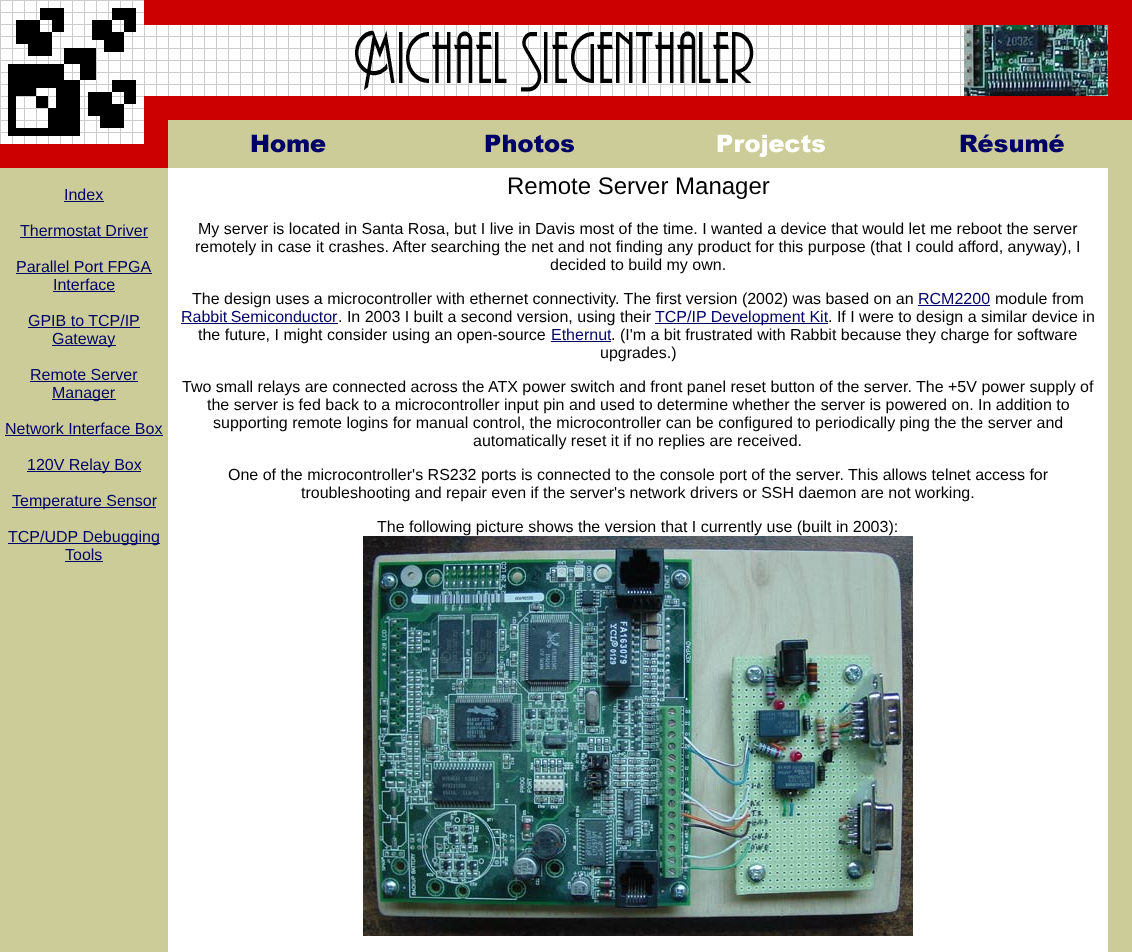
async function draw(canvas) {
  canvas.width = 1132
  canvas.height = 952
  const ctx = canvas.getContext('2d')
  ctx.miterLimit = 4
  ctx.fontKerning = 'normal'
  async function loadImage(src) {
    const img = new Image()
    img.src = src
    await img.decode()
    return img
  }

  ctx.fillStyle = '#fff'
  ctx.fillRect(0, 0, 1132, 952)
  ctx.drawImage(await loadImage('image0.png'), 0, 0, 964, 144)
  ctx.drawImage(await loadImage('image1.png'), 8, 8, 128, 128)
  ctx.fillStyle = '#c00'
  ctx.fillRect(0, 144, 144, 24)
  ctx.fillRect(144, 0, 988, 25)
  ctx.drawImage(await loadImage('image2.png'), 355, 30, 399, 62)
  ctx.drawImage(await loadImage('image3.png'), 964, 25, 144, 71)
  ctx.fillRect(1108, 25, 24, 71)
  ctx.fillRect(144, 96, 988, 24)
  ctx.fillRect(144, 120, 24, 48)
  ctx.fillStyle = '#cc9'
  ctx.fillRect(168, 120, 964, 48)
  ctx.drawImage(await loadImage('image4.png'), 251, 134, 75, 19)
  ctx.drawImage(await loadImage('image5.png'), 485, 134, 89, 19)
  ctx.drawImage(await loadImage('image6.png'), 717, 134, 108, 23)
  ctx.drawImage(await loadImage('image7.png'), 960, 134, 104, 19)
  ctx.fillRect(0, 168, 168, 784)
  ctx.font = '16px Liberation Sans'
  ctx.fillStyle = '#006'
  ctx.fillText('Index', 64, 200)
  ctx.fillRect(64, 201, 40, 1)
  ctx.fillText('Thermostat Driver', 20, 236)
  ctx.fillRect(20, 237, 128, 1)
  ctx.fillText('Parallel Port FPGA', 16, 272)
  ctx.fillRect(16, 273, 136, 1)
  ctx.fillText('Interface', 53, 290)
  ctx.fillRect(53, 291, 62, 1)
  ctx.fillText('GPIB to TCP/IP', 28, 326)
  ctx.fillRect(28, 327, 112, 1)
  ctx.fillRect(52, 345, 64, 1)
  ctx.fillText('Gateway', 52, 344)
  ctx.fillText('Remote Server', 30, 380)
  ctx.fillRect(30, 381, 108, 1)
  ctx.fillRect(52, 399, 64, 1)
  ctx.fillText('Manager', 52, 398)
  ctx.fillText('Network Interface Box', 5, 434)
  ctx.fillRect(5, 435, 158, 1)
  ctx.fillRect(27, 471, 114, 1)
  ctx.fillText('120V Relay Box', 27, 470)
  ctx.fillRect(12, 507, 144, 1)
  ctx.fillText('Temperature Sensor', 12, 506)
  ctx.fillRect(8, 543, 152, 1)
  ctx.fillText('TCP/UDP Debugging', 8, 542)
  ctx.fillText('Tools', 65, 560)
  ctx.fillRect(65, 561, 38, 1)
  ctx.font = '24px Liberation Sans'
  ctx.fillStyle = '#000'
  ctx.fillText('Remote Server Manager', 507, 194)
  ctx.font = '16px Liberation Sans'
  ctx.fillText('My server is located in Santa Rosa, but I live in Davis most of the time. I wanted a device that would let me reboot the server', 198, 234)
  ctx.fillText('remotely in case it crashes. After searching the net and not finding any product for this purpose (that I could afford, anyway), I', 195, 252)
  ctx.fillText('decided to build my own.', 550, 270)
  ctx.fillText('The design uses a microcontroller with ethernet connectivity. The first version (2002) was based on an', 192, 304)
  ctx.fillStyle = '#006'
  ctx.fillText('RCM2200', 918, 304)
  ctx.fillRect(918, 305, 72, 1)
  ctx.fillStyle = '#000'
  ctx.fillText('module from', 995, 304)
  ctx.wordSpacing = '-1px'
  ctx.fillStyle = '#006'
  ctx.fillText('Rabbit Semiconductor', 181, 322)
  ctx.fillRect(181, 323, 157, 1)
  ctx.wordSpacing = '0px'
  ctx.fillStyle = '#000'
  ctx.fillText('. In 2003 I built a second version, using their', 338, 322)
  ctx.fillStyle = '#006'
  ctx.fillRect(655, 323, 173, 1)
  ctx.fillText('TCP/IP Development Kit', 655, 322)
  ctx.fillStyle = '#000'
  ctx.fillText('. If I were to design a similar device in', 828, 322)
  ctx.fillText('the future, I might consider using an open-source', 198, 340)
  ctx.fillStyle = '#006'
  ctx.fillText('Ethernut', 551, 340)
  ctx.fillRect(551, 341, 60, 1)
  ctx.fillStyle = '#000'
  ctx.fillText('. (I\'m a bit frustrated with Rabbit because they charge for software', 611, 340)
  ctx.fillText('upgrades.)', 600, 358)
  ctx.fillText('Two small relays are connected across the ATX power switch and front panel reset button of the server. The +5V power supply of', 182, 392)
  ctx.fillText('the server is fed back to a microcontroller input pin and used to determine whether the server is powered on. In addition to', 207, 410)
  ctx.fillText('supporting remote logins for manual control, the microcontroller can be configured to periodically ping the the server and', 213, 428)
  ctx.fillText('automatically reset it if no replies are received.', 473, 446)
  ctx.fillText('One of the microcontroller\'s RS232 ports is connected to the console port of the server. This allows telnet access for', 228, 480)
  ctx.fillText('troubleshooting and repair even if the server\'s network drivers or SSH daemon are not working.', 301, 498)
  ctx.fillText('The following picture shows the version that I currently use (built in 2003):', 377, 532)
  ctx.drawImage(await loadImage('image8.png'), 363, 536, 550, 400)
  ctx.fillStyle = '#cc9'
  ctx.fillRect(1108, 168, 24, 784)
}

draw(document.querySelector('canvas'))
